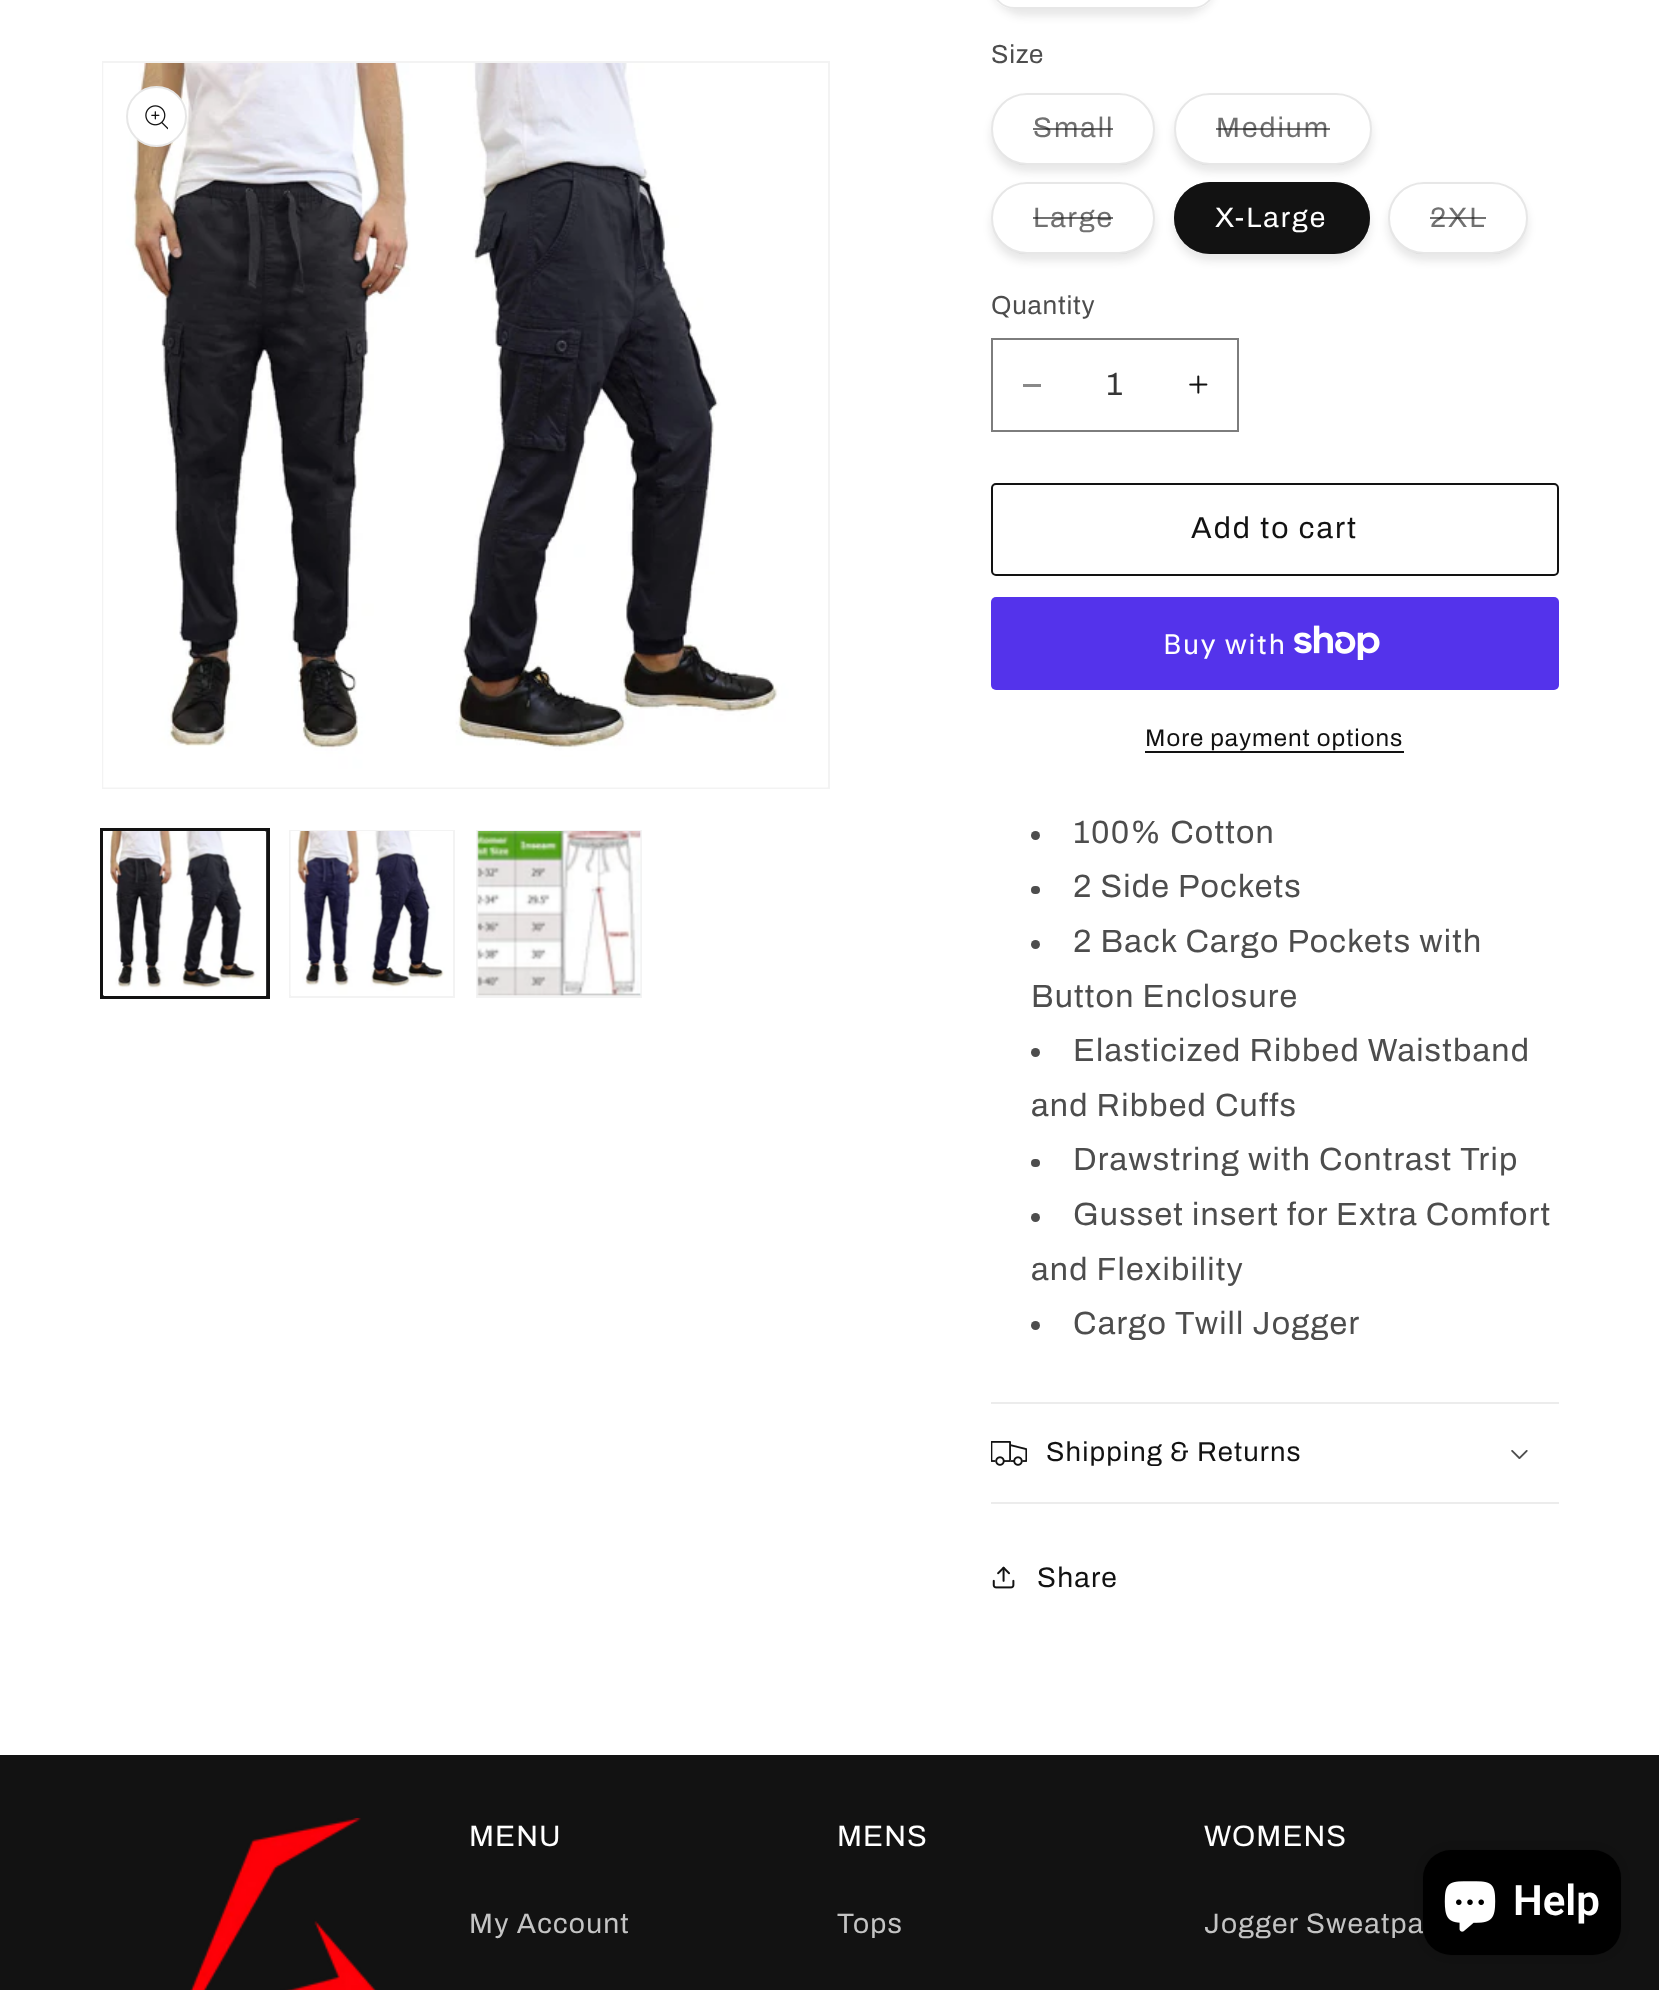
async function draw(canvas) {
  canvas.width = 1659
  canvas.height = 1990
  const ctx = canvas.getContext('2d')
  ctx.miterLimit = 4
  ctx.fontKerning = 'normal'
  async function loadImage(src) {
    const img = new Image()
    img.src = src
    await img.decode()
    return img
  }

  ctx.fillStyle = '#fff'
  ctx.fillRect(0, 0, 1659, 1990)
  ctx.strokeStyle = '#f3f3f3'
  ctx.lineWidth = 2
  ctx.strokeRect(103, 62, 726, 726)
  ctx.drawImage(await loadImage('image0.png'), 103, 63, 725, 725)
  ctx.beginPath()
  ctx.arc(156.5, 116.5, 30.5, 0, 2 * Math.PI)
  ctx.fill()
  ctx.beginPath()
  ctx.arc(156.5, 116.5, 29.5, 0, 2 * Math.PI)
  ctx.strokeStyle = '#1212121a'
  ctx.stroke()
  ctx.drawImage(await loadImage('image1.png'), 145, 105, 23, 25)
  ctx.strokeStyle = '#121212'
  ctx.strokeRect(101, 829, 168, 169)
  ctx.strokeRect(103, 831, 164, 166)
  ctx.drawImage(await loadImage('image2.png'), 103, 831, 164, 165)
  ctx.strokeStyle = '#f3f3f3'
  ctx.strokeRect(290, 831, 164, 166)
  ctx.drawImage(await loadImage('image3.png'), 290, 831, 163, 164)
  ctx.strokeRect(477, 831, 164, 166)
  ctx.drawImage(await loadImage('image4.png'), 477, 831, 164, 165)
  ctx.fillStyle = '#1212121a'
  ctx.filter = 'blur(4.5px)'
  ctx.beginPath()
  ctx.roundRect(991, -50, 225, 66, 36)
  ctx.fill()
  ctx.filter = 'none'
  ctx.fillStyle = '#fff'
  ctx.beginPath()
  ctx.roundRect(991, -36, 225, 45, 36)
  ctx.fill()
  ctx.beginPath()
  ctx.roundRect(992, -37, 223, 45, 35)
  ctx.strokeStyle = '#1212121a'
  ctx.stroke()
  ctx.letterSpacing = '0.75px'
  ctx.font = '26px Archivo'
  ctx.fillStyle = '#4d4d4d'
  ctx.fillText('Size', 991, 63)
  ctx.fillStyle = '#1212121a'
  ctx.filter = 'blur(4.5px)'
  ctx.beginPath()
  ctx.roundRect(991, 100, 164, 72, 36)
  ctx.fill()
  ctx.filter = 'none'
  ctx.fillStyle = '#fff'
  ctx.beginPath()
  ctx.roundRect(991, 93, 164, 72, 36)
  ctx.fill()
  ctx.beginPath()
  ctx.roundRect(992, 94, 162, 70, 35)
  ctx.stroke()
  ctx.letterSpacing = '2px'
  ctx.font = '28.25px Archivo'
  ctx.fillStyle = '#717171'
  ctx.fillText('Small', 1033, 137)
  ctx.fillStyle = '#12121299'
  ctx.fillRect(1033, 128, 80, 2)
  ctx.fillStyle = '#1212121a'
  ctx.filter = 'blur(4.5px)'
  ctx.beginPath()
  ctx.roundRect(1174, 100, 198, 72, 36)
  ctx.fill()
  ctx.filter = 'none'
  ctx.fillStyle = '#fff'
  ctx.beginPath()
  ctx.roundRect(1174, 93, 198, 72, 36)
  ctx.fill()
  ctx.beginPath()
  ctx.roundRect(1175, 94, 196, 70, 35)
  ctx.stroke()
  ctx.fillStyle = '#717171'
  ctx.fillText('Medium', 1216, 137)
  ctx.fillStyle = '#12121299'
  ctx.fillRect(1216, 128, 114, 2)
  ctx.fillStyle = '#1212121a'
  ctx.filter = 'blur(4.5px)'
  ctx.beginPath()
  ctx.roundRect(991, 189, 164, 72, 36)
  ctx.fill()
  ctx.filter = 'none'
  ctx.fillStyle = '#fff'
  ctx.beginPath()
  ctx.roundRect(991, 182, 164, 72, 36)
  ctx.fill()
  ctx.beginPath()
  ctx.roundRect(992, 183, 162, 70, 35)
  ctx.stroke()
  ctx.fillStyle = '#717171'
  ctx.fillText('Large', 1033, 227)
  ctx.fillStyle = '#12121299'
  ctx.fillRect(1033, 217, 80, 2)
  ctx.fillStyle = '#1212121a'
  ctx.filter = 'blur(4.5px)'
  ctx.beginPath()
  ctx.roundRect(1174, 189, 196, 72, 36)
  ctx.fill()
  ctx.filter = 'none'
  ctx.fillStyle = '#121212'
  ctx.beginPath()
  ctx.roundRect(1174, 182, 196, 72, 36)
  ctx.fill()
  ctx.beginPath()
  ctx.roundRect(1175, 183, 194, 70, 35)
  ctx.strokeStyle = '#1212128c'
  ctx.stroke()
  ctx.fillStyle = '#fff'
  ctx.fillText('X-Large', 1215, 227)
  ctx.fillStyle = '#1212121a'
  ctx.filter = 'blur(4.5px)'
  ctx.beginPath()
  ctx.roundRect(1388, 189, 140, 72, 36)
  ctx.fill()
  ctx.filter = 'none'
  ctx.fillStyle = '#fff'
  ctx.beginPath()
  ctx.roundRect(1388, 182, 140, 72, 36)
  ctx.fill()
  ctx.beginPath()
  ctx.roundRect(1389, 183, 138, 70, 35)
  ctx.strokeStyle = '#1212121a'
  ctx.stroke()
  ctx.fillStyle = '#717171'
  ctx.fillText('2XL', 1430, 227)
  ctx.fillStyle = '#12121299'
  ctx.fillRect(1430, 217, 56, 2)
  ctx.letterSpacing = '0.75px'
  ctx.font = '26px Archivo'
  ctx.fillStyle = '#4d4d4d'
  ctx.fillText('Quantity', 991, 314)
  ctx.fillStyle = '#898989'
  ctx.fillRect(1023, 384, 18, 3)
  ctx.drawImage(await loadImage('image5.png'), 1189, 375, 19, 19)
  ctx.strokeStyle = '#7d7d7d'
  ctx.strokeRect(992, 339, 246, 92)
  ctx.letterSpacing = '0px'
  ctx.font = '32.25px Archivo'
  ctx.fillStyle = '#363636'
  ctx.fillText('1', 1106, 395)
  ctx.beginPath()
  ctx.roundRect(992, 484, 566, 91, 4)
  ctx.strokeStyle = '#121212'
  ctx.stroke()
  ctx.letterSpacing = '2px'
  ctx.font = '30.25px Archivo'
  ctx.fillStyle = '#121212'
  ctx.fillText('Add to cart', 1191, 538)
  ctx.fillStyle = '#5433eb'
  ctx.beginPath()
  ctx.roundRect(991, 597, 568, 93, 5)
  ctx.fill()
  ctx.letterSpacing = '1.2px'
  ctx.font = '28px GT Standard'
  ctx.fillStyle = '#fff'
  ctx.fillText('Buy with', 1163, 654)
  ctx.drawImage(await loadImage('image6.png'), 1294, 625, 86, 35)
  ctx.letterSpacing = '1px'
  ctx.font = '24.1px Archivo'
  ctx.fillStyle = '#121212'
  ctx.fillText('More payment options', 1145, 746)
  ctx.fillRect(1145, 751, 259, 2)
  ctx.fillStyle = '#4d4d4d'
  ctx.beginPath()
  ctx.arc(1035.5, 835.5, 4.5, 0, 2 * Math.PI)
  ctx.fill()
  ctx.letterSpacing = '1.2px'
  ctx.font = '32.25px Archivo'
  ctx.fillText('100% Cotton', 1073, 843)
  ctx.beginPath()
  ctx.roundRect(1031, 886, 9, 8, 4)
  ctx.fill()
  ctx.fillText('2 Side Pockets', 1073, 897)
  ctx.beginPath()
  ctx.arc(1035.5, 944.5, 4.5, 0, 2 * Math.PI)
  ctx.fill()
  ctx.fillText('2 Back Cargo Pockets with', 1073, 952)
  ctx.fillText('Button Enclosure', 1031, 1007)
  ctx.beginPath()
  ctx.arc(1035.5, 1052.5, 4.5, 0, 2 * Math.PI)
  ctx.fill()
  ctx.fillText('Elasticized Ribbed Waistband', 1073, 1061)
  ctx.fillText('and Ribbed Cuffs', 1031, 1116)
  ctx.beginPath()
  ctx.roundRect(1031, 1159, 9, 8, 4)
  ctx.fill()
  ctx.fillText('Drawstring with Contrast Trip', 1073, 1170)
  ctx.beginPath()
  ctx.arc(1035.5, 1217.5, 4.5, 0, 2 * Math.PI)
  ctx.fill()
  ctx.fillText('Gusset insert for Extra Comfort', 1073, 1225)
  ctx.fillText('and Flexibility', 1031, 1280)
  ctx.beginPath()
  ctx.arc(1035.5, 1325.5, 4.5, 0, 2 * Math.PI)
  ctx.fill()
  ctx.fillText('Cargo Twill Jogger', 1073, 1334)
  ctx.fillStyle = '#ececec'
  ctx.fillRect(991, 1402, 568, 2)
  ctx.fillRect(991, 1502, 568, 2)
  ctx.drawImage(await loadImage('image7.png'), 991, 1441, 36, 25)
  ctx.letterSpacing = '1.1px'
  ctx.font = '27.5px Archivo'
  ctx.fillStyle = '#121212'
  ctx.fillText('Shipping & Returns', 1046, 1461)
  ctx.drawImage(await loadImage('image8.png'), 1511, 1450, 17, 9)
  ctx.drawImage(await loadImage('image9.png'), 992, 1566, 23, 23)
  ctx.letterSpacing = '1.2px'
  ctx.font = '28.25px Archivo'
  ctx.fillText('Share', 1037, 1587)
  ctx.fillRect(0, 1755, 1659, 235)
  ctx.drawImage(await loadImage('image10.png'), 190, 1818, 187, 172)
  ctx.letterSpacing = '1.1px'
  ctx.font = '29.5px Archivo'
  ctx.fillStyle = '#fff'
  ctx.fillText('MENU', 469, 1846)
  ctx.letterSpacing = '1.2px'
  ctx.font = '28.25px Archivo'
  ctx.fillStyle = '#c4c4c4'
  ctx.fillText('My Account', 469, 1933)
  ctx.letterSpacing = '1.1px'
  ctx.font = '29.5px Archivo'
  ctx.fillStyle = '#fff'
  ctx.fillText('MENS', 837, 1846)
  ctx.letterSpacing = '1.2px'
  ctx.font = '28.25px Archivo'
  ctx.fillStyle = '#c4c4c4'
  ctx.fillText('Tops', 837, 1933)
  ctx.letterSpacing = '1.1px'
  ctx.font = '29.5px Archivo'
  ctx.fillStyle = '#fff'
  ctx.fillText('WOMENS', 1204, 1846)
  ctx.letterSpacing = '1.2px'
  ctx.font = '28.25px Archivo'
  ctx.fillStyle = '#c4c4c4'
  ctx.fillText('Jogger Sweatpa', 1204, 1933)
  ctx.fillStyle = '#00000026'
  ctx.filter = 'blur(4.5px)'
  ctx.beginPath()
  ctx.roundRect(1423, 1850, 198, 105, 28)
  ctx.fill()
  ctx.filter = 'none'
  ctx.fillStyle = '#000'
  ctx.beginPath()
  ctx.roundRect(1423, 1850, 198, 105, 28)
  ctx.fill()
  ctx.drawImage(await loadImage('image11.png'), 1444, 1881, 52, 51)
  ctx.letterSpacing = '0px'
  ctx.font = '600 42px Roboto'
  ctx.fillStyle = '#fff'
  ctx.fillText('Help', 1513, 1915)
}

draw(document.querySelector('canvas'))
